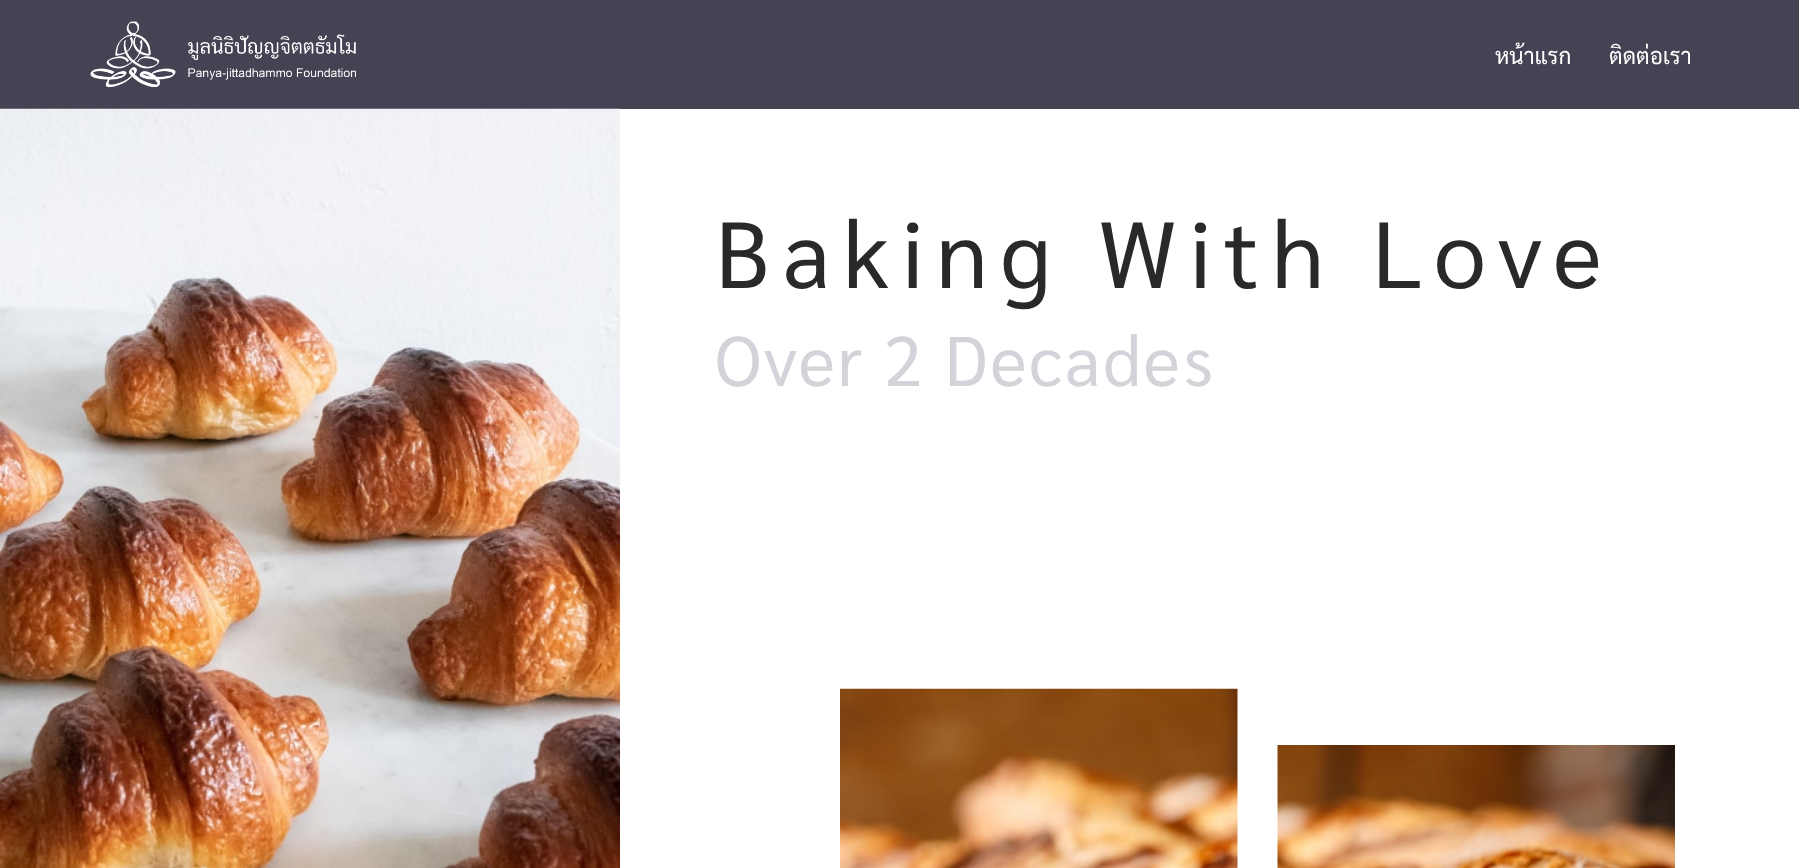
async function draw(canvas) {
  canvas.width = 1799
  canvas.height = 868
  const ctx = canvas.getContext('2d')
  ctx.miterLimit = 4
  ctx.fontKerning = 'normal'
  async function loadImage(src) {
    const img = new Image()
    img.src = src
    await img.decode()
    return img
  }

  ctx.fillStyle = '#fff'
  ctx.fillRect(0, 0, 1799, 868)
  ctx.fillStyle = '#454253'
  ctx.fillRect(0, 0, 1799, 109)
  ctx.drawImage(await loadImage('image0.png'), 90, 21, 266, 67)
  ctx.font = '22.5px Sarabun'
  ctx.fillStyle = '#fff'
  ctx.fillText('หน้าแรก', 1495, 64)
  ctx.fillText('ติดต่อเรา', 1609, 64)
  ctx.drawImage(await loadImage('image1.png'), 0, 108, 620, 760)
  ctx.letterSpacing = '12.5px'
  ctx.font = '93.5px Sarabun'
  ctx.fillStyle = '#29292a'
  ctx.fillText('Baking With Love', 715, 288)
  ctx.letterSpacing = '2.5px'
  ctx.font = '70px Sarabun'
  ctx.fillStyle = '#d3d3d9'
  ctx.fillText('Over 2 Decades', 715, 386)
  ctx.drawImage(await loadImage('image2.png'), 840, 688, 398, 180)
  ctx.drawImage(await loadImage('image3.png'), 1277, 745, 398, 123)
}

draw(document.querySelector('canvas'))
